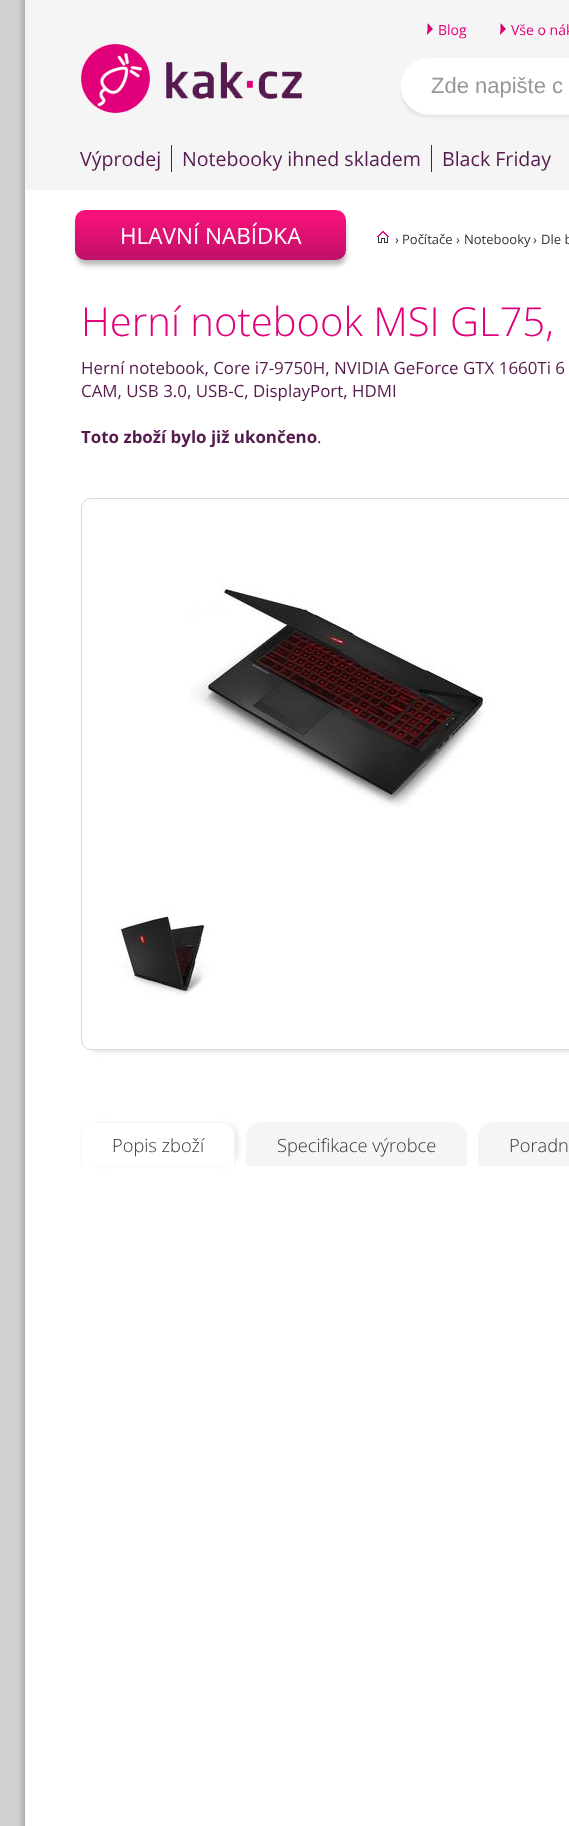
async function draw(canvas) {
  canvas.width = 569
  canvas.height = 1826
  const ctx = canvas.getContext('2d')
  ctx.miterLimit = 4
  ctx.fontKerning = 'normal'
  async function loadImage(src) {
    const img = new Image()
    img.src = src
    await img.decode()
    return img
  }
  let gradient

  ctx.fillStyle = '#d0d0d0'
  ctx.fillRect(0, 0, 569, 1826)
  ctx.drawImage(await loadImage('image0.png'), 18, 0, 551, 1826)
  ctx.fillStyle = '#f5f5f5'
  ctx.fillRect(25, 0, 544, 190)
  ctx.drawImage(await loadImage('image1.png'), 426, 23, 7, 13)
  ctx.font = '14px Open Sans'
  ctx.fillStyle = '#e1007a'
  ctx.fillText('Blog', 438, 35)
  ctx.drawImage(await loadImage('image1.png'), 499, 23, 7, 13)
  ctx.fillText('Vše o nák', 511, 35)
  ctx.drawImage(await loadImage('image2.png'), 81, 44, 221, 69)
  ctx.fillStyle = '#e2e2e2'
  ctx.filter = 'blur(1.5px)'
  ctx.beginPath()
  ctx.roundRect(401, 67, 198, 50, 25)
  ctx.fill()
  ctx.filter = 'none'
  ctx.fillStyle = '#fff'
  ctx.beginPath()
  ctx.moveTo(429, 57.5)
  ctx.lineTo(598.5, 57.5)
  ctx.lineTo(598.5, 114.5)
  ctx.lineTo(429, 114.5)
  ctx.bezierCurveTo(413.5, 114.5, 400.5, 101.5, 400.5, 86)
  ctx.bezierCurveTo(400.5, 70.5, 413.5, 57.5, 429, 57.5)
  ctx.closePath()
  ctx.fill()
  ctx.strokeStyle = '#f5f5f5'
  ctx.stroke()
  ctx.font = '22px Liberation Sans'
  ctx.fillStyle = '#979797'
  ctx.fillText('Zde napište c', 431, 93)
  ctx.fillStyle = '#551b4e'
  ctx.fillRect(171, 145, 1, 27)
  ctx.font = '19.6px Open Sans'
  ctx.fillText('Výprodej', 80, 166)
  ctx.fillRect(431, 145, 1, 27)
  ctx.fillText('Notebooky ihned skladem', 182, 166)
  ctx.fillText('Black Friday', 442, 166)
  ctx.fillStyle = '#b7b7b7'
  ctx.filter = 'blur(2.5px)'
  ctx.beginPath()
  ctx.roundRect(77, 217, 269, 48, 9)
  ctx.fill()
  ctx.filter = 'none'
  gradient = ctx.createLinearGradient(211, 210, 211, 260)
  gradient.addColorStop(0, '#fd127d')
  gradient.addColorStop(1, '#bf1069')
  ctx.fillStyle = gradient
  ctx.beginPath()
  ctx.roundRect(75, 210, 271, 50, 10)
  ctx.fill()
  ctx.font = '22.5px Open Sans'
  ctx.fillStyle = '#fff'
  ctx.fillText('HLAVNÍ NABÍDKA', 120, 244)
  ctx.drawImage(await loadImage('image3.png'), 377, 231, 12, 12)
  ctx.font = '13px Open Sans'
  ctx.fillStyle = '#551b4e'
  ctx.fillText('›', 395, 244)
  ctx.fillStyle = '#333'
  ctx.fillText('Počítače', 402, 244)
  ctx.fillStyle = '#551b4e'
  ctx.fillText('›', 456, 244)
  ctx.fillStyle = '#333'
  ctx.fillText('Notebooky', 464, 244)
  ctx.fillStyle = '#551b4e'
  ctx.fillText('›', 533, 244)
  ctx.fillStyle = '#333'
  ctx.fillText('Dle b', 541, 244)
  ctx.font = '300 40px Open Sans'
  ctx.fillStyle = '#e1007a'
  ctx.fillText('Herní notebook MSI GL75,', 81, 336)
  ctx.font = '16.9px Open Sans'
  ctx.fillStyle = '#551b4e'
  ctx.fillText('Herní notebook, Core i7-9750H, NVIDIA GeForce GTX 1660Ti 6', 81, 374)
  ctx.fillText('CAM, USB 3.0, USB-C, DisplayPort, HDMI', 81, 397)
  ctx.font = 'bold 16.9px Open Sans'
  ctx.fillText('Toto zboží bylo již ukončeno', 81, 443)
  ctx.font = '16.9px Open Sans'
  ctx.fillText('.', 317, 443)
  ctx.save()
  ctx.beginPath()
  ctx.moveTo(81, 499)
  ctx.lineTo(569, 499)
  ctx.lineTo(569, 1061)
  ctx.lineTo(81, 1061)
  ctx.closePath()
  ctx.moveTo(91, 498)
  ctx.lineTo(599, 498)
  ctx.bezierCurveTo(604.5, 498, 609, 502.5, 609, 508)
  ctx.lineTo(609, 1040)
  ctx.bezierCurveTo(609, 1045.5, 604.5, 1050, 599, 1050)
  ctx.lineTo(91, 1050)
  ctx.bezierCurveTo(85.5, 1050, 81, 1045.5, 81, 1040)
  ctx.lineTo(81, 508)
  ctx.bezierCurveTo(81, 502.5, 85.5, 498, 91, 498)
  ctx.closePath()
  ctx.clip('evenodd')
  ctx.fillStyle = '#e2e2e2'
  ctx.filter = 'blur(2.5px)'
  ctx.beginPath()
  ctx.roundRect(90, 508, 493, 544, 6)
  ctx.fill()
  ctx.filter = 'none'
  ctx.restore()
  ctx.beginPath()
  ctx.roundRect(81.5, 498.5, 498, 551, 9.5)
  ctx.strokeStyle = '#d9d9d9'
  ctx.stroke()
  ctx.drawImage(await loadImage('image4.png'), 189, 583, 300, 224)
  ctx.drawImage(await loadImage('image5.png'), 115, 909, 96, 88)
  ctx.fillStyle = '#e2dfe0'
  ctx.filter = 'blur(3px)'
  ctx.beginPath()
  ctx.roundRect(89, 1125, 148, 38, 12)
  ctx.fill()
  ctx.filter = 'none'
  ctx.fillStyle = '#fff'
  ctx.beginPath()
  ctx.roundRect(81, 1122, 154, 44, [15, 15, 0, 0])
  ctx.fill()
  ctx.fillStyle = '#f5f5f5'
  ctx.beginPath()
  ctx.moveTo(96, 1122)
  ctx.lineTo(220, 1122)
  ctx.bezierCurveTo(228, 1122, 235, 1129, 235, 1137)
  ctx.lineTo(235, 1166)
  ctx.lineTo(81, 1166)
  ctx.lineTo(81, 1137)
  ctx.bezierCurveTo(81, 1129, 88, 1122, 96, 1122)
  ctx.closePath()
  ctx.moveTo(96, 1123)
  ctx.lineTo(220, 1123)
  ctx.bezierCurveTo(228, 1123, 234, 1129, 234, 1137)
  ctx.lineTo(234, 1166)
  ctx.lineTo(82, 1166)
  ctx.lineTo(82, 1137)
  ctx.bezierCurveTo(82, 1129, 88, 1123, 96, 1123)
  ctx.closePath()
  ctx.fill('evenodd')
  ctx.font = '300 18.25px Open Sans'
  ctx.fillStyle = '#333'
  ctx.fillText('Popis zboží', 112, 1152)
  ctx.fillStyle = '#f5f5f5'
  ctx.beginPath()
  ctx.roundRect(246, 1122, 221, 44, [15, 15, 0, 0])
  ctx.fill()
  ctx.fillStyle = '#333'
  ctx.fillText('Specifikace výrobce', 277, 1152)
  ctx.fillStyle = '#f5f5f5'
  ctx.beginPath()
  ctx.moveTo(493, 1122)
  ctx.lineTo(569, 1122)
  ctx.bezierCurveTo(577.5, 1122, 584, 1128.5, 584, 1137)
  ctx.lineTo(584, 1166)
  ctx.lineTo(478, 1166)
  ctx.lineTo(478, 1137)
  ctx.bezierCurveTo(478, 1128.5, 484.5, 1122, 493, 1122)
  ctx.closePath()
  ctx.fill()
  ctx.fillStyle = '#333'
  ctx.fillText('Poradn', 509, 1152)
}

draw(document.querySelector('canvas'))
